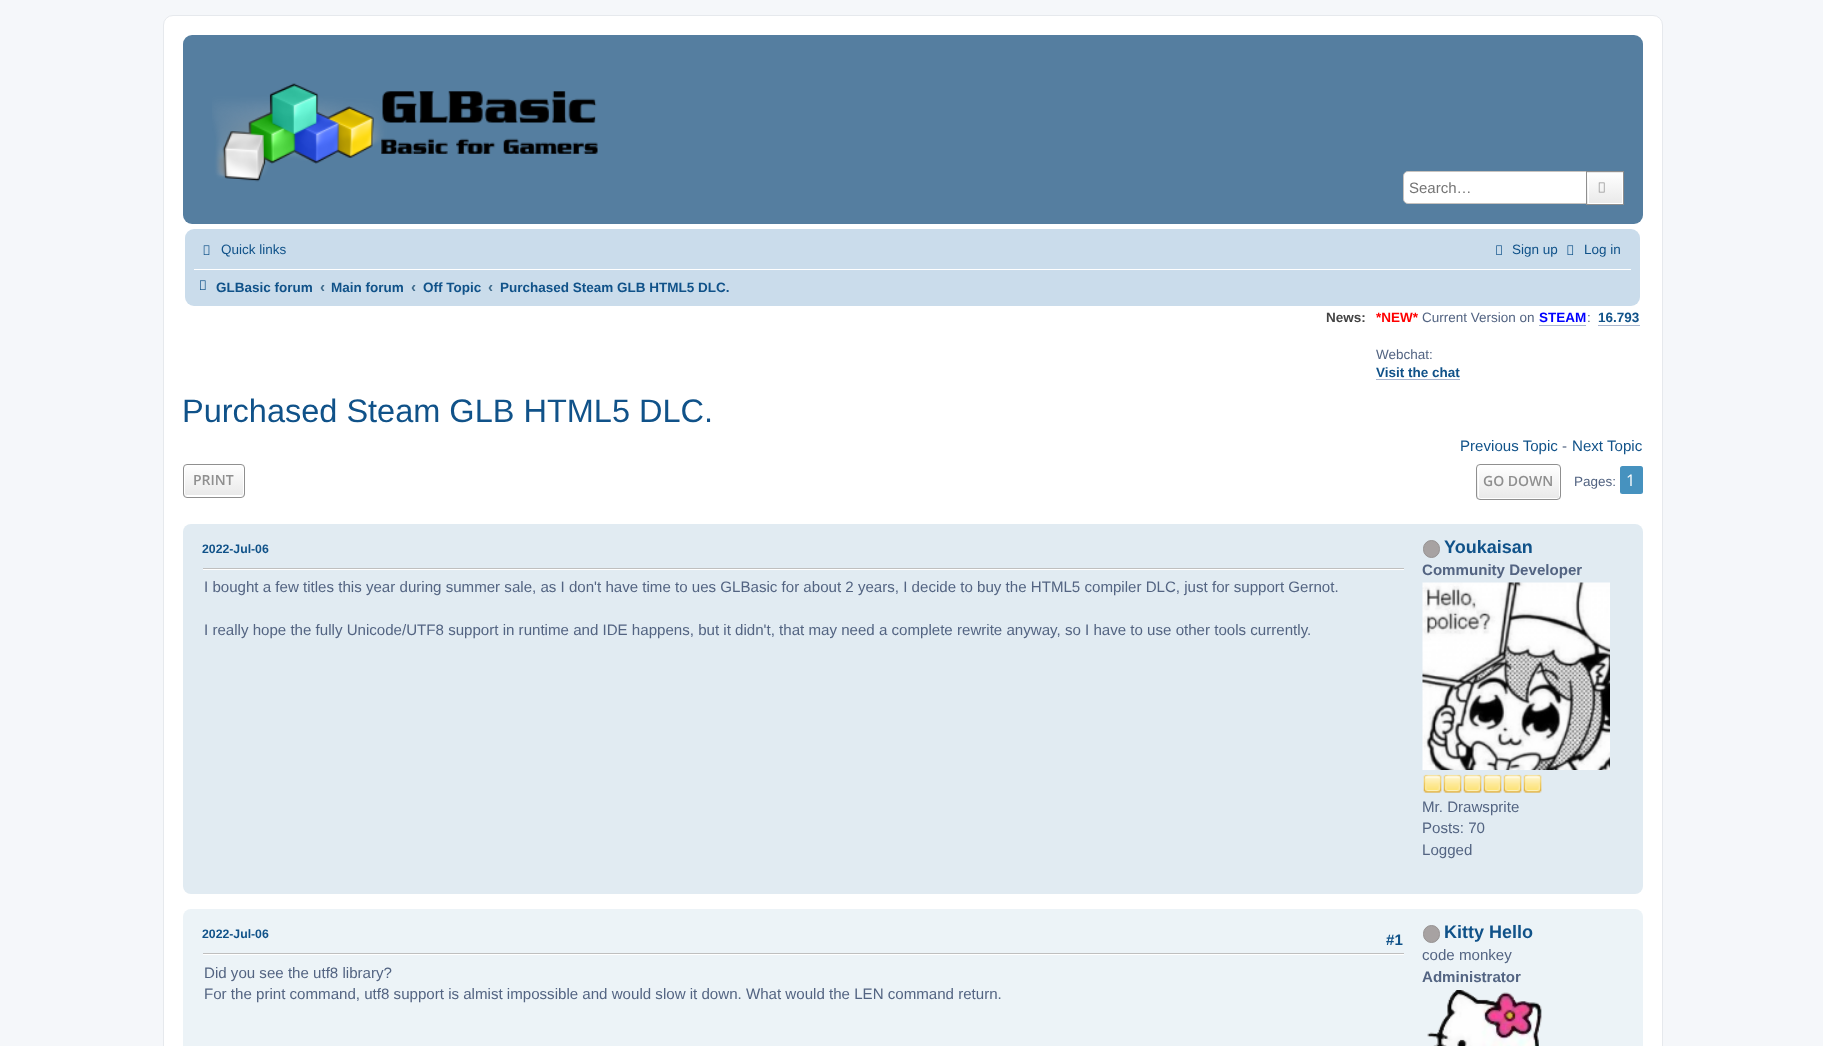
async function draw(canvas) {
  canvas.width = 1823
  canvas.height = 1046
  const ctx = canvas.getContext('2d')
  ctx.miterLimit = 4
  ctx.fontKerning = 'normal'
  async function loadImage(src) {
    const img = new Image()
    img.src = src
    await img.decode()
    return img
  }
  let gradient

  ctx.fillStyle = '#f5f7fa'
  ctx.fillRect(0, 0, 1823, 1046)
  ctx.fillStyle = '#fff'
  ctx.beginPath()
  ctx.roundRect(163.5, 15.5, 1499, 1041, 9.5)
  ctx.fill()
  ctx.strokeStyle = '#e6e9ed'
  ctx.stroke()
  ctx.fillStyle = '#557ea0'
  ctx.beginPath()
  ctx.roundRect(183, 35, 1460, 189, 9)
  ctx.fill()
  ctx.drawImage(await loadImage('image0.png'), 212, 83, 386, 99)
  ctx.fillStyle = '#fff'
  ctx.beginPath()
  ctx.roundRect(1403.5, 171.5, 186, 32, [4.5, 0, 0, 4.5])
  ctx.fill()
  ctx.strokeStyle = '#c7c3bf'
  ctx.stroke()
  ctx.font = '15px Liberation Sans'
  ctx.fillStyle = '#757575'
  ctx.fillText('Search…', 1409, 193)
  ctx.fillStyle = '#e9e9e9'
  ctx.fillRect(1587, 172, 36, 1)
  gradient = ctx.createLinearGradient(1605, 173, 1605, 204)
  gradient.addColorStop(0, '#fff')
  gradient.addColorStop(1, '#e9e9e9')
  ctx.fillStyle = gradient
  ctx.fillRect(1587, 173, 35, 31)
  ctx.strokeStyle = '#fff'
  ctx.strokeRect(1588.5, 173.5, 34, 30)
  ctx.strokeStyle = '#8f8f8f'
  ctx.strokeRect(1586.5, 171.5, 37, 33)
  ctx.drawImage(await loadImage('image1.png'), 1598, 182, 7, 11)
  ctx.fillStyle = '#cadceb'
  ctx.beginPath()
  ctx.roundRect(185, 229, 1455, 77, 9)
  ctx.fill()
  ctx.drawImage(await loadImage('image2.png'), 203, 245, 7, 10)
  ctx.font = '13.5px Liberation Sans'
  ctx.fillStyle = '#105289'
  ctx.fillText('Quick links', 221, 254)
  ctx.drawImage(await loadImage('image3.png'), 1496, 245, 6, 10)
  ctx.fillText('Sign up', 1512, 254)
  ctx.drawImage(await loadImage('image4.png'), 1567, 245, 7, 10)
  ctx.fillText('Log in', 1584, 254)
  ctx.fillStyle = '#fff'
  ctx.fillRect(194, 269, 1437, 1)
  ctx.drawImage(await loadImage('image5.png'), 200, 280, 6, 10)
  ctx.font = 'bold 13.5px Liberation Sans'
  ctx.fillStyle = '#105289'
  ctx.fillText('GLBasic forum', 216, 292)
  ctx.font = 'bold 15px Liberation Sans'
  ctx.fillStyle = '#3f6b8c'
  ctx.fillText('‹', 320, 292)
  ctx.font = 'bold 13.5px Liberation Sans'
  ctx.fillStyle = '#105289'
  ctx.fillText('Main forum', 331, 292)
  ctx.font = 'bold 15px Liberation Sans'
  ctx.fillStyle = '#3f6b8c'
  ctx.fillText('‹', 411, 292)
  ctx.font = 'bold 13.5px Liberation Sans'
  ctx.fillStyle = '#105289'
  ctx.fillText('Off Topic', 423, 292)
  ctx.font = 'bold 15px Liberation Sans'
  ctx.fillStyle = '#3f6b8c'
  ctx.fillText('‹', 488, 292)
  ctx.font = 'bold 13.5px Liberation Sans'
  ctx.fillStyle = '#105289'
  ctx.fillText('Purchased Steam GLB HTML5 DLC.', 500, 292)
  ctx.fillStyle = '#444'
  ctx.fillText('News:', 1326, 322)
  ctx.fillStyle = '#f00'
  ctx.fillText('*NEW*', 1376, 322)
  ctx.font = '13.5px Liberation Sans'
  ctx.fillStyle = '#536482'
  ctx.fillText('Current Version on', 1422, 322)
  ctx.font = 'bold 13.5px Liberation Sans'
  ctx.fillStyle = '#00f'
  ctx.fillText('STEAM', 1539, 322)
  ctx.fillStyle = '#a8b6cf'
  ctx.fillRect(1539, 325, 47, 1)
  ctx.font = '13.5px Liberation Sans'
  ctx.fillStyle = '#536482'
  ctx.fillText(':', 1587, 322)
  ctx.font = 'bold 13.5px Liberation Sans'
  ctx.fillStyle = '#105289'
  ctx.fillText('16.793', 1598, 322)
  ctx.fillStyle = '#a8b6cf'
  ctx.fillRect(1598, 325, 42, 1)
  ctx.font = '13.5px Liberation Sans'
  ctx.fillStyle = '#536482'
  ctx.fillText('Webchat:', 1376, 359)
  ctx.font = 'bold 13.5px Liberation Sans'
  ctx.fillStyle = '#105289'
  ctx.fillText('Visit the chat', 1376, 377)
  ctx.fillStyle = '#a8b6cf'
  ctx.fillRect(1376, 379, 84, 1)
  ctx.font = '32.5px Liberation Sans'
  ctx.fillStyle = '#105289'
  ctx.fillText('Purchased Steam GLB HTML5 DLC.', 182, 422)
  ctx.font = '15.1px Liberation Sans'
  ctx.fillText('Previous Topic', 1460, 451)
  ctx.fillStyle = '#536482'
  ctx.fillText('-', 1562, 451)
  ctx.fillStyle = '#105289'
  ctx.fillText('Next Topic', 1572, 451)
  ctx.save()
  ctx.beginPath()
  ctx.roundRect(183, 464, 62, 34, 4)
  ctx.clip()
  gradient = ctx.createLinearGradient(214, 465, 214, 496)
  gradient.addColorStop(0, '#fff')
  gradient.addColorStop(1, '#e9e9e9')
  ctx.fillStyle = gradient
  ctx.fillRect(183, 465, 62, 31)
  ctx.restore()
  ctx.beginPath()
  ctx.roundRect(184.5, 465.5, 59, 30, 2)
  ctx.strokeStyle = '#fff'
  ctx.stroke()
  ctx.beginPath()
  ctx.roundRect(183.5, 464.5, 61, 33, 3.5)
  ctx.strokeStyle = '#8f8f8f'
  ctx.stroke()
  ctx.font = '600 14px Open Sans'
  ctx.fillStyle = '#8f8f8f'
  ctx.fillText('PRINT', 193, 485)
  ctx.save()
  ctx.beginPath()
  ctx.roundRect(1476, 464, 85, 36, 4)
  ctx.clip()
  gradient = ctx.createLinearGradient(1519, 465, 1519, 499)
  gradient.addColorStop(0, '#fff')
  gradient.addColorStop(1, '#e9e9e9')
  ctx.fillStyle = gradient
  ctx.fillRect(1476, 465, 85, 34)
  ctx.restore()
  ctx.beginPath()
  ctx.roundRect(1478.5, 465.5, 81, 33, 2)
  ctx.strokeStyle = '#fff'
  ctx.stroke()
  ctx.beginPath()
  ctx.roundRect(1476.5, 464.5, 84, 35, 3.5)
  ctx.strokeStyle = '#8f8f8f'
  ctx.stroke()
  ctx.fillText('GO DOWN', 1483, 486)
  ctx.font = '13.5px Liberation Sans'
  ctx.fillStyle = '#536482'
  ctx.fillText('Pages:', 1574, 486)
  ctx.fillStyle = '#4692bf'
  ctx.beginPath()
  ctx.roundRect(1620, 466, 23, 28, 2.5)
  ctx.fill()
  ctx.font = '16px Open Sans'
  ctx.fillStyle = '#fff'
  ctx.fillText('1', 1626, 486)
  ctx.fillStyle = '#e1ebf2'
  ctx.beginPath()
  ctx.roundRect(183, 524, 1460, 370, 8)
  ctx.fill()
  ctx.font = 'bold 12.25px Liberation Sans'
  ctx.fillStyle = '#105289'
  ctx.fillText('2022-Jul-06', 202, 553)
  ctx.fillStyle = '#fff'
  ctx.fillRect(203, 569, 1201, 1)
  ctx.fillStyle = '#bfbfbf'
  ctx.fillRect(203, 568, 1201, 1)
  ctx.font = '15.1px Liberation Sans'
  ctx.fillStyle = '#536482'
  ctx.fillText('I bought a few titles this year during summer sale, as I don\'t have time to ues GLBasic for about 2 years, I decide to buy the HTML5 compiler DLC, just for support Gernot.', 204, 592)
  ctx.fillText('I really hope the fully Unicode/UTF8 support in runtime and IDE happens, but it didn\'t, that may need a complete rewrite anyway, so I have to use other tools currently.', 204, 635)
  ctx.fillStyle = '#a7a2a2'
  ctx.beginPath()
  ctx.roundRect(1423.5, 540.5, 16, 17, 8)
  ctx.fill()
  ctx.strokeStyle = '#969292'
  ctx.stroke()
  ctx.font = 'bold 18px Liberation Sans'
  ctx.fillStyle = '#105289'
  ctx.fillText('Youkaisan', 1444, 553)
  ctx.font = 'bold 15.1px Liberation Sans'
  ctx.fillStyle = '#536482'
  ctx.fillText('Community Developer', 1422, 575)
  ctx.drawImage(await loadImage('image6.png'), 1422, 582, 188, 188)
  ctx.drawImage(await loadImage('image7.png'), 1423, 774, 19, 19)
  ctx.drawImage(await loadImage('image7.png'), 1443, 774, 19, 19)
  ctx.drawImage(await loadImage('image7.png'), 1463, 774, 19, 19)
  ctx.drawImage(await loadImage('image7.png'), 1483, 774, 19, 19)
  ctx.drawImage(await loadImage('image7.png'), 1503, 774, 19, 19)
  ctx.drawImage(await loadImage('image7.png'), 1523, 774, 19, 19)
  ctx.font = '15.1px Liberation Sans'
  ctx.fillText('Mr. Drawsprite', 1422, 812)
  ctx.fillText('Posts: 70', 1422, 833)
  ctx.fillText('Logged', 1422, 855)
  ctx.fillStyle = '#ecf3f7'
  ctx.beginPath()
  ctx.roundRect(183, 909, 1460, 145, 8)
  ctx.fill()
  ctx.font = 'bold 12.25px Liberation Sans'
  ctx.fillStyle = '#105289'
  ctx.fillText('2022-Jul-06', 202, 938)
  ctx.font = 'bold 15.1px Liberation Sans'
  ctx.fillText('#1', 1386, 945)
  ctx.fillStyle = '#fff'
  ctx.fillRect(203, 954, 1201, 1)
  ctx.fillStyle = '#bfbfbf'
  ctx.fillRect(203, 953, 1201, 1)
  ctx.font = '15.1px Liberation Sans'
  ctx.fillStyle = '#536482'
  ctx.fillText('Did you see the utf8 library?', 204, 978)
  ctx.fillText('For the print command, utf8 support is almist impossible and would slow it down. What would the LEN command return.', 204, 999)
  ctx.fillStyle = '#a7a2a2'
  ctx.beginPath()
  ctx.roundRect(1423.5, 925.5, 16, 17, 8)
  ctx.fill()
  ctx.stroke()
  ctx.font = 'bold 18px Liberation Sans'
  ctx.fillStyle = '#105289'
  ctx.fillText('Kitty Hello', 1444, 938)
  ctx.font = '15.1px Liberation Sans'
  ctx.fillStyle = '#536482'
  ctx.fillText('code monkey', 1422, 960)
  ctx.font = 'bold 15.1px Liberation Sans'
  ctx.fillText('Administrator', 1422, 982)
  ctx.drawImage(await loadImage('image8.png'), 1427, 990, 115, 56)
}

draw(document.querySelector('canvas'))
